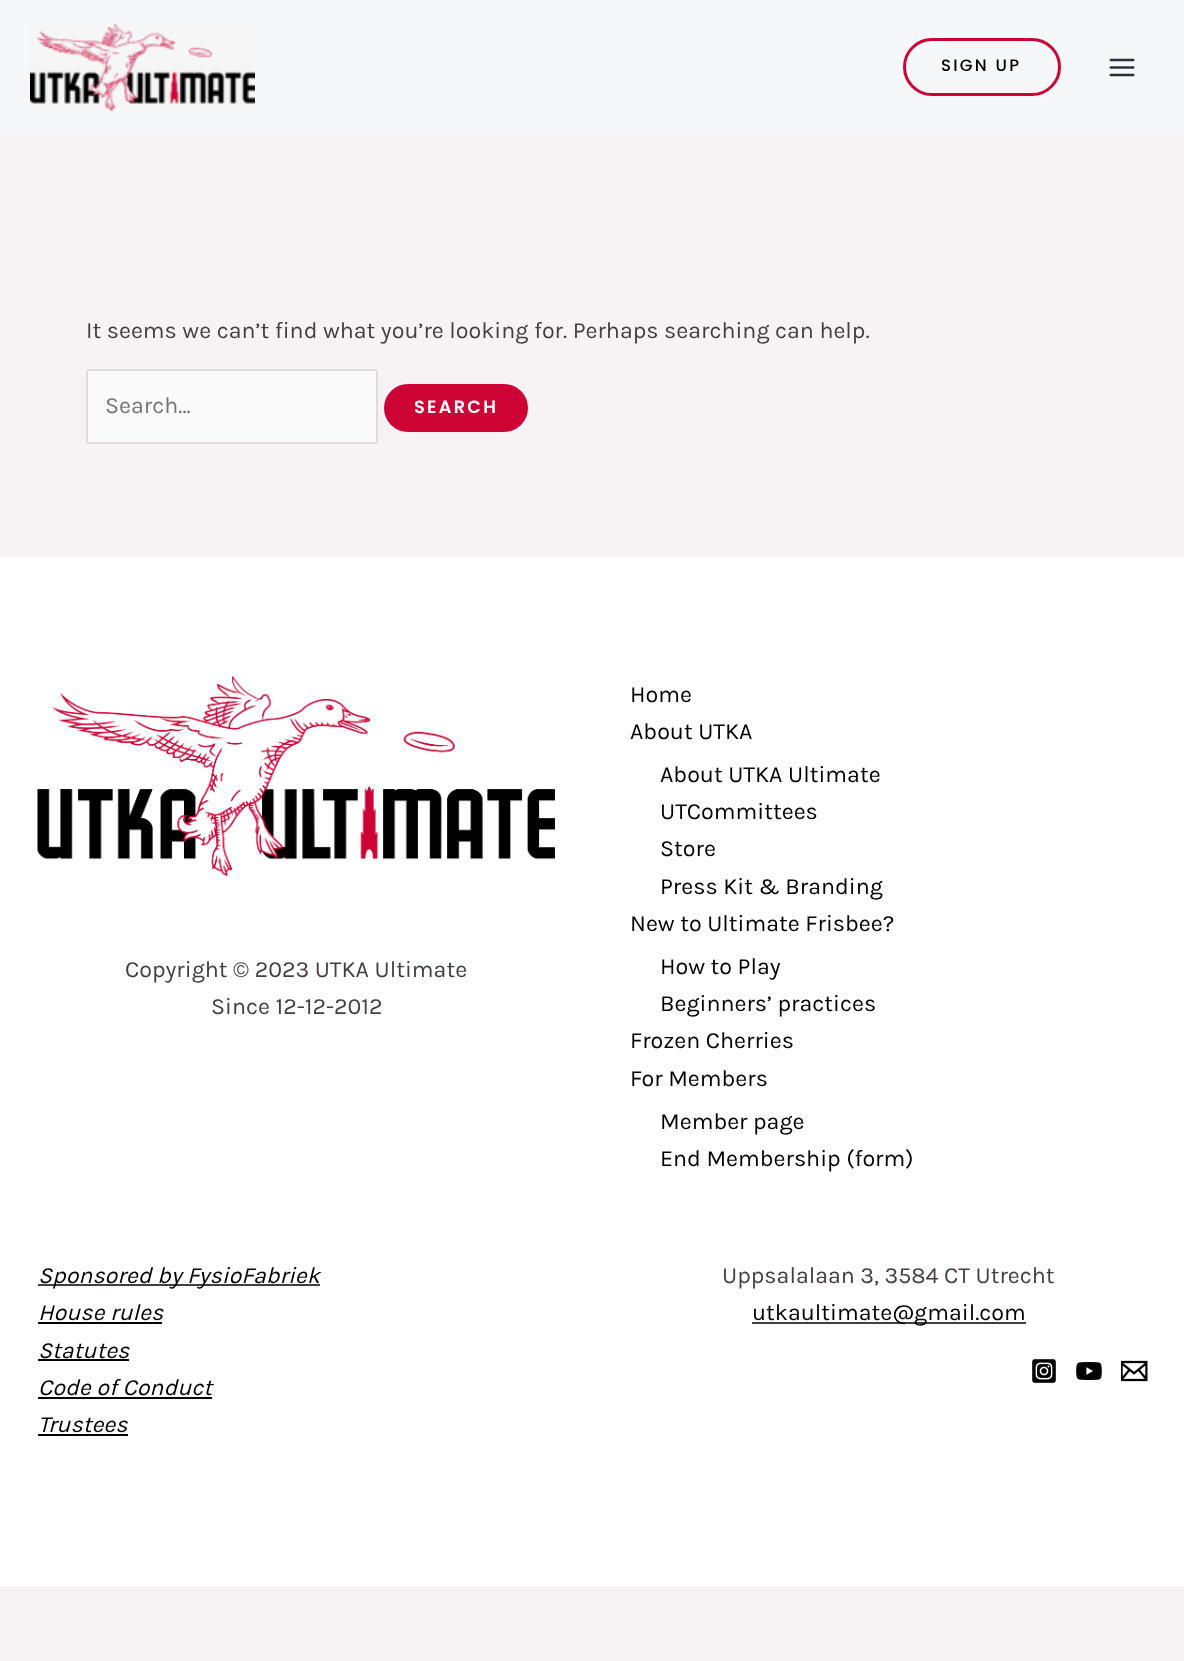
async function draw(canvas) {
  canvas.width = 1184
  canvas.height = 1661
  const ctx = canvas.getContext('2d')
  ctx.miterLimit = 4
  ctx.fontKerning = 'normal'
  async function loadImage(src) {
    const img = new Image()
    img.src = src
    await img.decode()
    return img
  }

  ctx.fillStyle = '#f7f3f5'
  ctx.fillRect(0, 0, 1184, 1661)
  ctx.fillStyle = '#f6f7f8'
  ctx.fillRect(0, 0, 1184, 134)
  ctx.drawImage(await loadImage('image0.png'), 30, 24, 225, 87)
  ctx.beginPath()
  ctx.roundRect(904.5, 39.5, 155, 55, 27.5)
  ctx.strokeStyle = '#cd0335'
  ctx.lineWidth = 3
  ctx.stroke()
  ctx.letterSpacing = '2.25px'
  ctx.font = '500 16.5px Poppins'
  ctx.fillStyle = '#000'
  ctx.fillText('SIGN UP', 941, 71)
  ctx.drawImage(await loadImage('image1.png'), 1109, 58, 26, 19)
  ctx.letterSpacing = '0px'
  ctx.font = '23.25px Karla'
  ctx.fillStyle = '#453e3e'
  ctx.fillText('It seems we can’t find what you’re looking for. Perhaps searching can help.', 86, 338)
  ctx.fillStyle = '#fafafa'
  ctx.beginPath()
  ctx.roundRect(87, 370, 290, 73, 2)
  ctx.fill()
  ctx.strokeStyle = '#ddd'
  ctx.lineWidth = 2
  ctx.stroke()
  ctx.fillStyle = '#757575'
  ctx.fillText('Search...', 105, 413)
  ctx.fillStyle = '#cd0335'
  ctx.beginPath()
  ctx.roundRect(384, 384, 144, 48, 24)
  ctx.fill()
  ctx.letterSpacing = '2.25px'
  ctx.font = '600 17.75px Poppins'
  ctx.fillStyle = '#fff'
  ctx.fillText('SEARCH', 414, 413)
  ctx.fillRect(0, 557, 1184, 1029)
  ctx.drawImage(await loadImage('image2.png'), 37, 676, 518, 201)
  ctx.letterSpacing = '0px'
  ctx.font = '23.25px Karla'
  ctx.fillStyle = '#453e3e'
  ctx.fillText('Copyright © 2023 UTKA Ultimate', 125, 977)
  ctx.fillText('Since 12-12-2012', 211, 1014)
  ctx.fillStyle = '#000'
  ctx.fillText('Home', 630, 702)
  ctx.fillText('About UTKA', 630, 739)
  ctx.fillText('About UTKA Ultimate', 660, 782)
  ctx.fillText('UTCommittees', 660, 819)
  ctx.fillText('Store', 660, 856)
  ctx.fillText('Press Kit & Branding', 660, 894)
  ctx.fillText('New to Ultimate Frisbee?', 630, 931)
  ctx.fillText('How to Play', 660, 974)
  ctx.fillText('Beginners’ practices', 660, 1011)
  ctx.fillText('Frozen Cherries', 630, 1048)
  ctx.fillText('For Members', 630, 1086)
  ctx.fillText('Member page', 660, 1129)
  ctx.fillText('End Membership (form)', 660, 1166)
  ctx.fillStyle = '#453e3e'
  ctx.fillRect(38, 1284, 282, 2)
  ctx.font = 'italic 23.25px Karla'
  ctx.fillStyle = '#000'
  ctx.fillText('Sponsored by FysioFabriek', 38, 1283)
  ctx.fillText('House rules', 38, 1320)
  ctx.fillRect(38, 1322, 124, 2)
  ctx.fillText('Statutes', 38, 1358)
  ctx.fillRect(38, 1359, 91, 2)
  ctx.fillText('Code of Conduct', 38, 1395)
  ctx.fillRect(38, 1397, 174, 2)
  ctx.fillText('Trustees', 38, 1432)
  ctx.fillRect(38, 1434, 90, 2)
  ctx.font = '23.25px Karla'
  ctx.fillStyle = '#453e3e'
  ctx.fillText('Uppsalalaan 3, 3584 CT Utrecht', 722, 1283)
  ctx.fillRect(752, 1322, 274, 2)
  ctx.fillStyle = '#000'
  ctx.fillText('utkaultimate@gmail.com', 752, 1320)
  ctx.drawImage(await loadImage('image3.png'), 1032, 1359, 24, 24)
  ctx.drawImage(await loadImage('image4.png'), 1076, 1362, 26, 18)
  ctx.drawImage(await loadImage('image5.png'), 1121, 1360, 27, 22)
}

draw(document.querySelector('canvas'))
